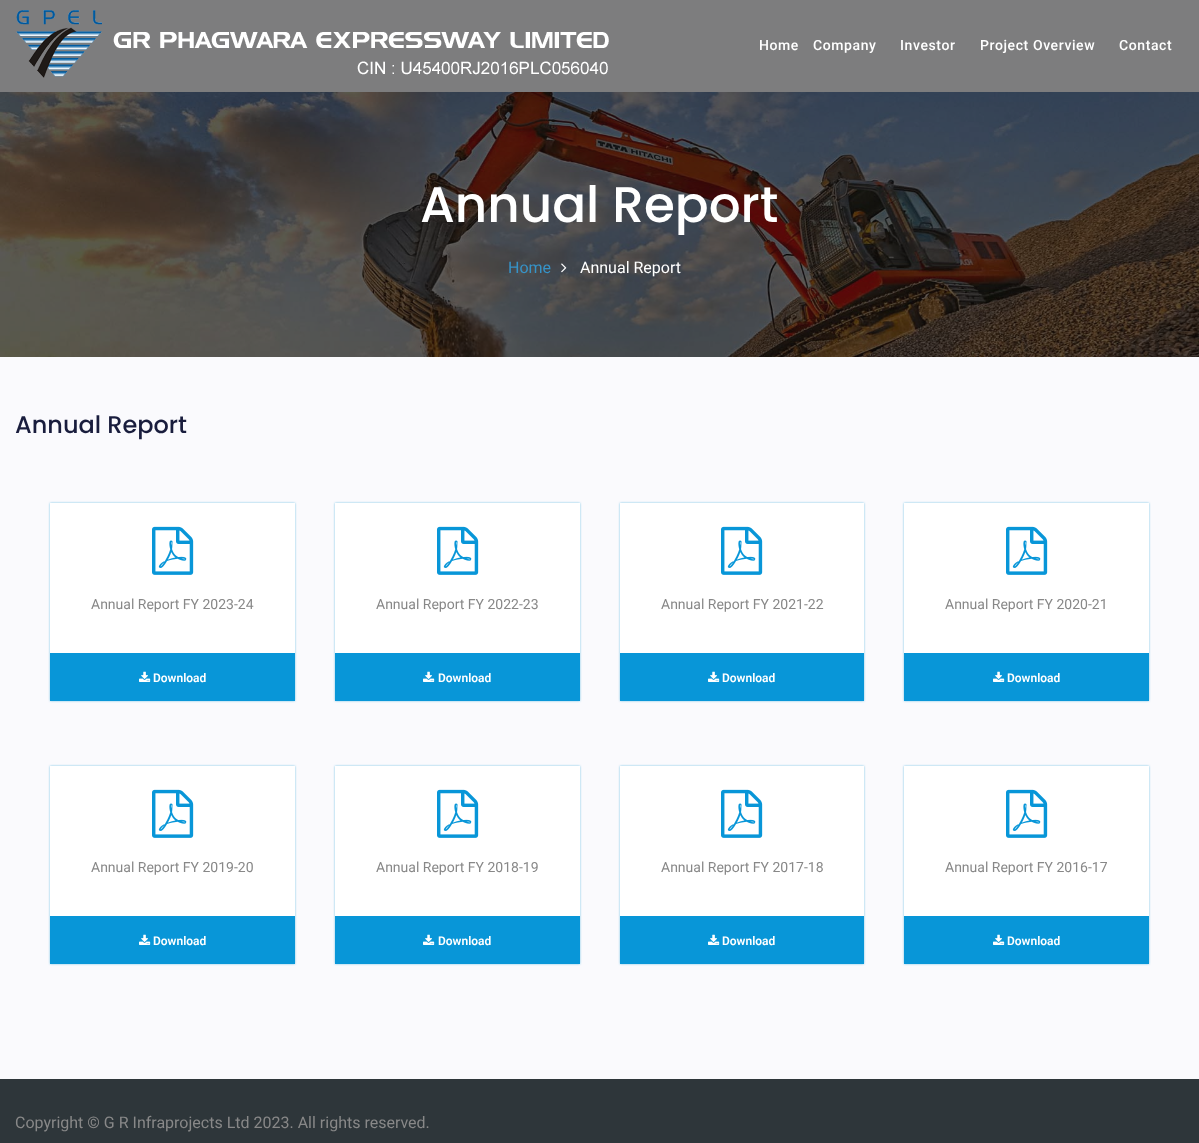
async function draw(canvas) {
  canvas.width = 1199
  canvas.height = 1143
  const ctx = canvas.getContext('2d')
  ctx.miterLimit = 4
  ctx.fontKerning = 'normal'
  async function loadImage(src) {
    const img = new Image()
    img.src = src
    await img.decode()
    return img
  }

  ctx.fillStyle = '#fafafd'
  ctx.fillRect(0, 0, 1199, 1143)
  ctx.fillStyle = '#7d7d7e'
  ctx.fillRect(0, 0, 1199, 92)
  ctx.drawImage(await loadImage('image0.png'), 16, 10, 593, 68)
  ctx.letterSpacing = '0.6px'
  ctx.font = '500 14px Roboto'
  ctx.fillStyle = '#fff'
  ctx.fillText('Home', 759, 50)
  ctx.fillText('Company', 813, 50)
  ctx.fillText('Investor', 900, 50)
  ctx.fillText('Project Overview', 980, 50)
  ctx.fillText('Contact', 1119, 50)
  ctx.drawImage(await loadImage('image1.png'), 0, 92, 1199, 265)
  ctx.letterSpacing = '0px'
  ctx.font = '500 50px Poppins'
  ctx.fillText('Annual Report', 420, 222)
  ctx.font = '16px Roboto'
  ctx.fillStyle = '#3693c8'
  ctx.fillText('Home', 508, 273)
  ctx.drawImage(await loadImage('image2.png'), 561, 263, 6, 10)
  ctx.fillStyle = '#fff'
  ctx.fillText('Annual Report', 580, 273)
  ctx.font = '500 24px Poppins'
  ctx.fillStyle = '#191d3d'
  ctx.fillText('Annual Report', 15, 433)
  ctx.fillStyle = '#79c5e8'
  ctx.filter = 'blur(1px)'
  ctx.beginPath()
  ctx.rect(50, 503, 245, 198)
  ctx.fill()
  ctx.filter = 'none'
  ctx.fillStyle = '#fff'
  ctx.fillRect(50, 503, 245, 150)
  ctx.drawImage(await loadImage('image3.png'), 152, 526, 42, 49)
  ctx.font = '14px Roboto'
  ctx.fillStyle = '#888'
  ctx.fillText('Annual Report FY 2023-24', 91, 609)
  ctx.fillStyle = '#0896d8'
  ctx.fillRect(50, 653, 245, 48)
  ctx.drawImage(await loadImage('image4.png'), 139, 671, 12, 11)
  ctx.font = '600 12px Roboto'
  ctx.fillStyle = '#fff'
  ctx.fillText('Download', 153, 682)
  ctx.fillStyle = '#79c5e8'
  ctx.filter = 'blur(1px)'
  ctx.beginPath()
  ctx.rect(335, 503, 245, 198)
  ctx.fill()
  ctx.filter = 'none'
  ctx.fillStyle = '#fff'
  ctx.fillRect(335, 503, 245, 150)
  ctx.drawImage(await loadImage('image3.png'), 437, 526, 42, 49)
  ctx.font = '14px Roboto'
  ctx.fillStyle = '#888'
  ctx.fillText('Annual Report FY 2022-23', 376, 609)
  ctx.fillStyle = '#0896d8'
  ctx.fillRect(335, 653, 245, 48)
  ctx.drawImage(await loadImage('image4.png'), 423, 671, 12, 11)
  ctx.font = '600 12px Roboto'
  ctx.fillStyle = '#fff'
  ctx.fillText('Download', 438, 682)
  ctx.fillStyle = '#79c5e8'
  ctx.filter = 'blur(1px)'
  ctx.beginPath()
  ctx.rect(620, 503, 244, 198)
  ctx.fill()
  ctx.filter = 'none'
  ctx.fillStyle = '#fff'
  ctx.fillRect(620, 503, 244, 150)
  ctx.drawImage(await loadImage('image3.png'), 721, 526, 42, 49)
  ctx.font = '14px Roboto'
  ctx.fillStyle = '#888'
  ctx.fillText('Annual Report FY 2021-22', 661, 609)
  ctx.fillStyle = '#0896d8'
  ctx.fillRect(620, 653, 244, 48)
  ctx.drawImage(await loadImage('image4.png'), 708, 671, 12, 11)
  ctx.font = '600 12px Roboto'
  ctx.fillStyle = '#fff'
  ctx.fillText('Download', 722, 682)
  ctx.fillStyle = '#79c5e8'
  ctx.filter = 'blur(1px)'
  ctx.beginPath()
  ctx.rect(904, 503, 245, 198)
  ctx.fill()
  ctx.filter = 'none'
  ctx.fillStyle = '#fff'
  ctx.fillRect(904, 503, 245, 150)
  ctx.drawImage(await loadImage('image3.png'), 1006, 526, 42, 49)
  ctx.font = '14px Roboto'
  ctx.fillStyle = '#888'
  ctx.fillText('Annual Report FY 2020-21', 945, 609)
  ctx.fillStyle = '#0896d8'
  ctx.fillRect(904, 653, 245, 48)
  ctx.drawImage(await loadImage('image4.png'), 993, 671, 12, 11)
  ctx.font = '600 12px Roboto'
  ctx.fillStyle = '#fff'
  ctx.fillText('Download', 1007, 682)
  ctx.fillStyle = '#79c5e8'
  ctx.filter = 'blur(1px)'
  ctx.beginPath()
  ctx.rect(50, 766, 245, 198)
  ctx.fill()
  ctx.filter = 'none'
  ctx.fillStyle = '#fff'
  ctx.fillRect(50, 766, 245, 150)
  ctx.drawImage(await loadImage('image3.png'), 152, 789, 42, 49)
  ctx.font = '14px Roboto'
  ctx.fillStyle = '#888'
  ctx.fillText('Annual Report FY 2019-20', 91, 872)
  ctx.fillStyle = '#0896d8'
  ctx.fillRect(50, 916, 245, 48)
  ctx.drawImage(await loadImage('image4.png'), 139, 934, 12, 11)
  ctx.font = '600 12px Roboto'
  ctx.fillStyle = '#fff'
  ctx.fillText('Download', 153, 945)
  ctx.fillStyle = '#79c5e8'
  ctx.filter = 'blur(1px)'
  ctx.beginPath()
  ctx.rect(335, 766, 245, 198)
  ctx.fill()
  ctx.filter = 'none'
  ctx.fillStyle = '#fff'
  ctx.fillRect(335, 766, 245, 150)
  ctx.drawImage(await loadImage('image3.png'), 437, 789, 42, 49)
  ctx.font = '14px Roboto'
  ctx.fillStyle = '#888'
  ctx.fillText('Annual Report FY 2018-19', 376, 872)
  ctx.fillStyle = '#0896d8'
  ctx.fillRect(335, 916, 245, 48)
  ctx.drawImage(await loadImage('image4.png'), 423, 934, 12, 11)
  ctx.font = '600 12px Roboto'
  ctx.fillStyle = '#fff'
  ctx.fillText('Download', 438, 945)
  ctx.fillStyle = '#79c5e8'
  ctx.filter = 'blur(1px)'
  ctx.beginPath()
  ctx.rect(620, 766, 244, 198)
  ctx.fill()
  ctx.filter = 'none'
  ctx.fillStyle = '#fff'
  ctx.fillRect(620, 766, 244, 150)
  ctx.drawImage(await loadImage('image3.png'), 721, 789, 42, 49)
  ctx.font = '14px Roboto'
  ctx.fillStyle = '#888'
  ctx.fillText('Annual Report FY 2017-18', 661, 872)
  ctx.fillStyle = '#0896d8'
  ctx.fillRect(620, 916, 244, 48)
  ctx.drawImage(await loadImage('image4.png'), 708, 934, 12, 11)
  ctx.font = '600 12px Roboto'
  ctx.fillStyle = '#fff'
  ctx.fillText('Download', 722, 945)
  ctx.fillStyle = '#79c5e8'
  ctx.filter = 'blur(1px)'
  ctx.beginPath()
  ctx.rect(904, 766, 245, 198)
  ctx.fill()
  ctx.filter = 'none'
  ctx.fillStyle = '#fff'
  ctx.fillRect(904, 766, 245, 150)
  ctx.drawImage(await loadImage('image3.png'), 1006, 789, 42, 49)
  ctx.font = '14px Roboto'
  ctx.fillStyle = '#888'
  ctx.fillText('Annual Report FY 2016-17', 945, 872)
  ctx.fillStyle = '#0896d8'
  ctx.fillRect(904, 916, 245, 48)
  ctx.drawImage(await loadImage('image4.png'), 993, 934, 12, 11)
  ctx.font = '600 12px Roboto'
  ctx.fillStyle = '#fff'
  ctx.fillText('Download', 1007, 945)
  ctx.fillStyle = '#2e363a'
  ctx.fillRect(0, 1079, 1199, 64)
  ctx.font = '16px Roboto'
  ctx.fillStyle = '#888'
  ctx.fillText('Copyright © G R Infraprojects Ltd 2023. All rights reserved.', 15, 1128)
}

draw(document.querySelector('canvas'))
